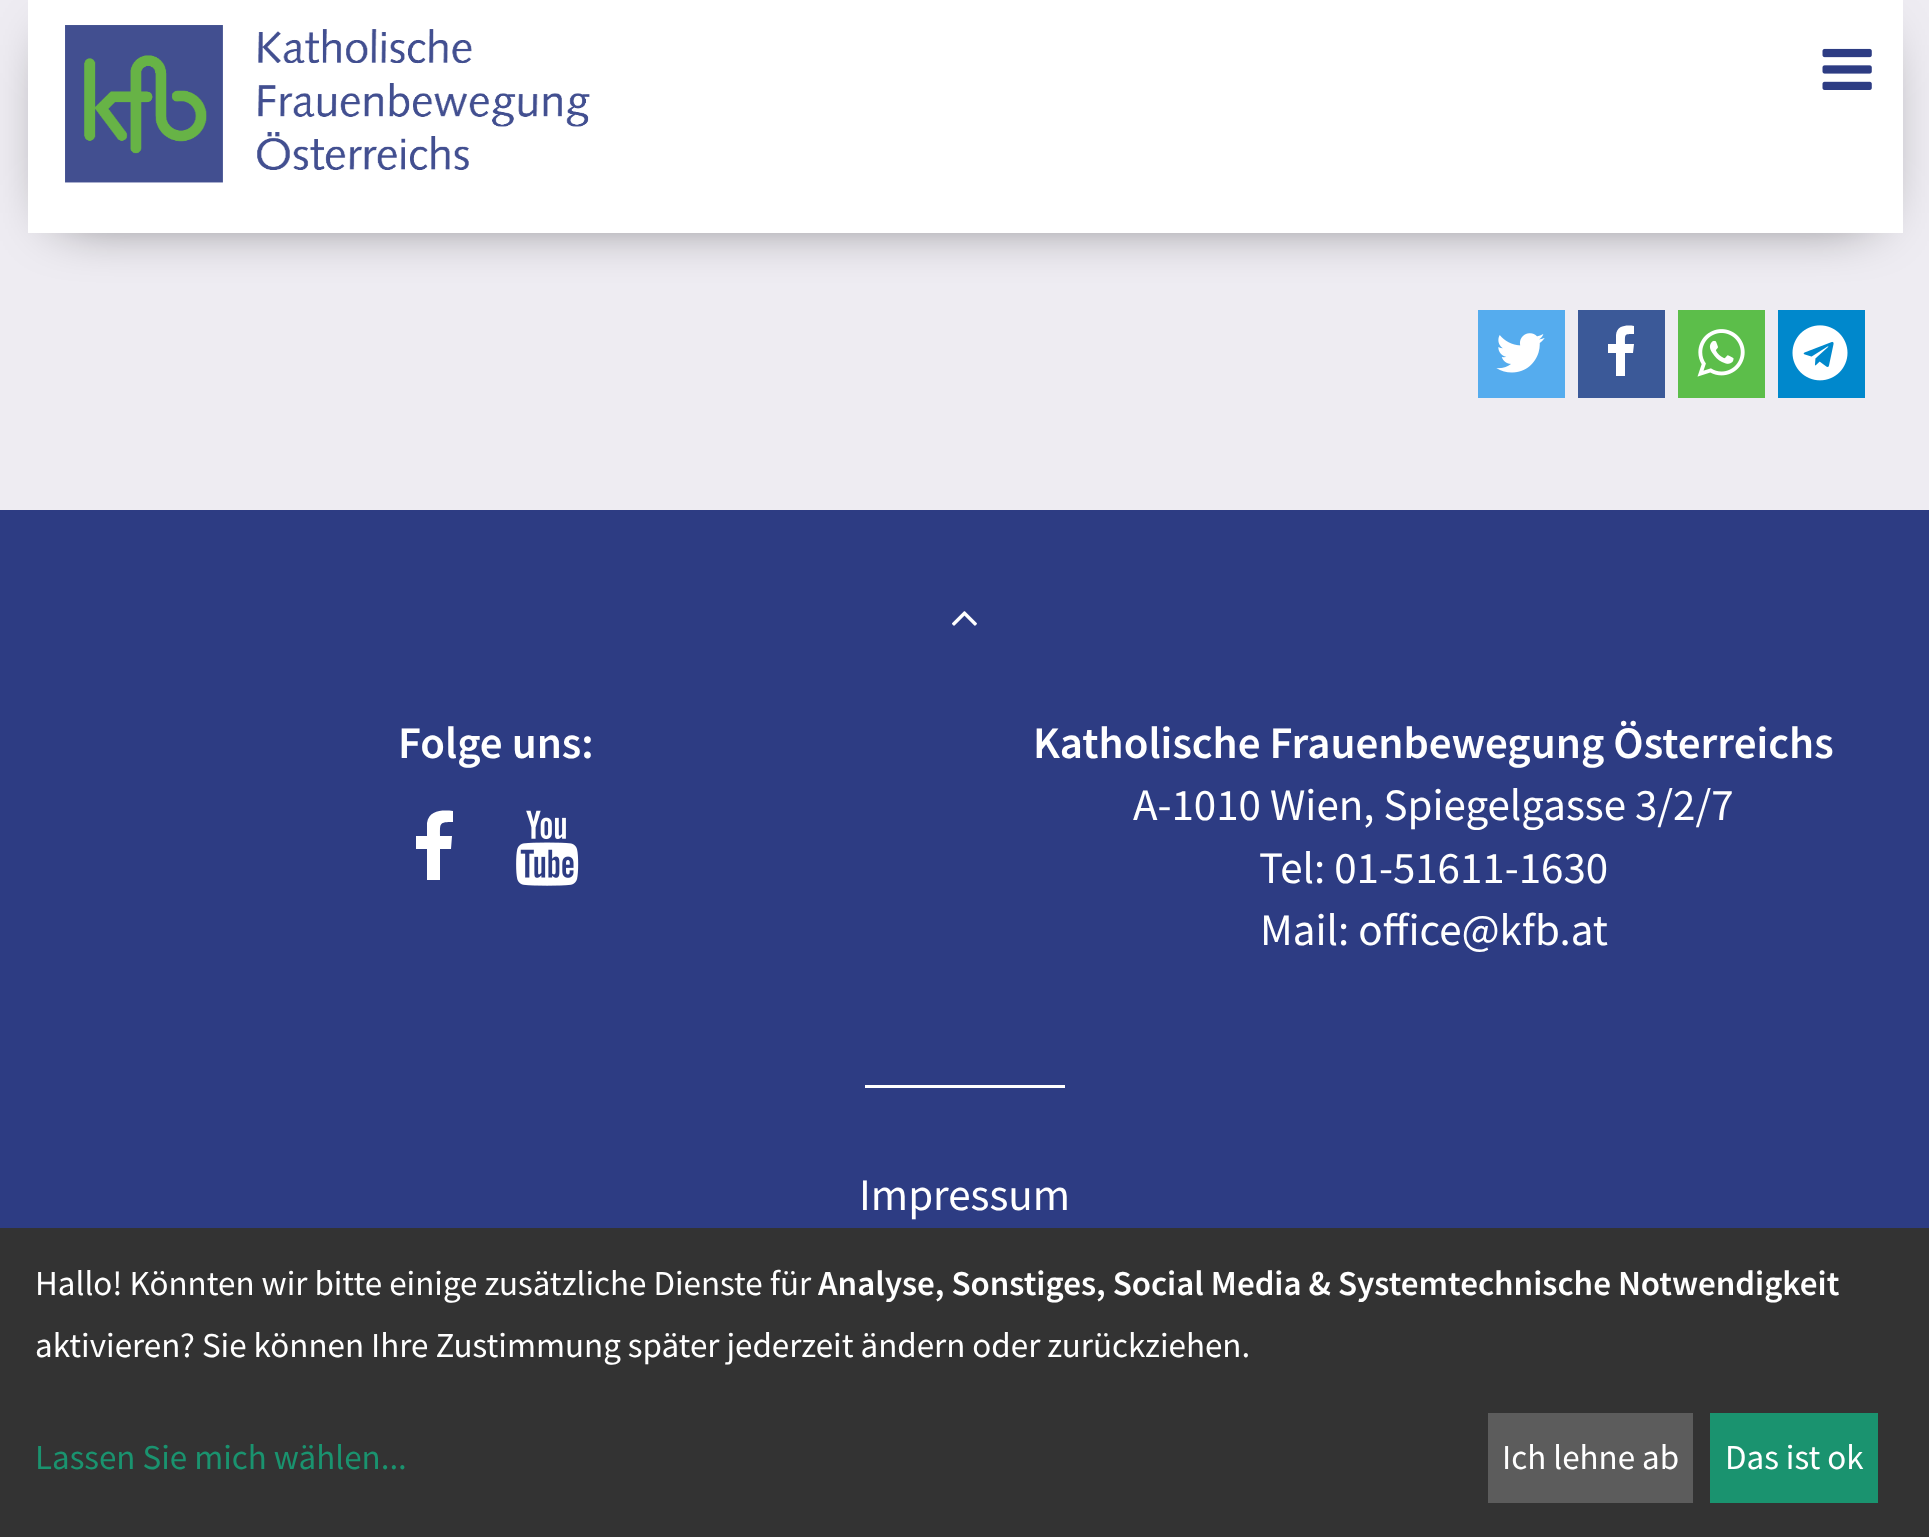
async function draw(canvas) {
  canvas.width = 1929
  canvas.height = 1537
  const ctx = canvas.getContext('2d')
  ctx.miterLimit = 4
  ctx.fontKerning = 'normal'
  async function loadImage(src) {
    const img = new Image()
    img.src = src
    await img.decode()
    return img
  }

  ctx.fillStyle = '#eeecf2'
  ctx.fillRect(0, 0, 1929, 1537)
  ctx.fillStyle = '#000000b3'
  ctx.filter = 'blur(30px)'
  ctx.beginPath()
  ctx.rect(60, 45, 1810, 168)
  ctx.fill()
  ctx.filter = 'none'
  ctx.fillStyle = '#fff'
  ctx.fillRect(28, 0, 1875, 233)
  ctx.drawImage(await loadImage('image0.png'), 65, 25, 525, 158)
  ctx.drawImage(await loadImage('image1.png'), 1822, 48, 50, 42)
  ctx.fillStyle = '#55acee'
  ctx.fillRect(1478, 310, 87, 88)
  ctx.drawImage(await loadImage('image2.png'), 1496, 333, 49, 40)
  ctx.fillStyle = '#3b5998'
  ctx.fillRect(1578, 310, 87, 88)
  ctx.fillStyle = '#fff'
  ctx.beginPath()
  ctx.moveTo(1634, 326)
  ctx.lineTo(1634, 334)
  ctx.bezierCurveTo(1624, 334, 1625, 334, 1625, 344)
  ctx.lineTo(1634, 344)
  ctx.lineTo(1633, 353)
  ctx.lineTo(1625, 353)
  ctx.lineTo(1625, 376)
  ctx.lineTo(1616, 376)
  ctx.lineTo(1616, 353)
  ctx.lineTo(1608, 353)
  ctx.lineTo(1608, 344)
  ctx.lineTo(1616, 344)
  ctx.lineTo(1616, 335)
  ctx.bezierCurveTo(1617, 325, 1627, 325, 1634, 326)
  ctx.closePath()
  ctx.fill()
  ctx.fillStyle = '#5cbe4a'
  ctx.fillRect(1678, 310, 87, 88)
  ctx.drawImage(await loadImage('image3.png'), 1697, 329, 48, 48)
  ctx.fillStyle = '#08c'
  ctx.fillRect(1778, 310, 87, 88)
  ctx.drawImage(await loadImage('image4.png'), 1792, 325, 56, 56)
  ctx.fillStyle = '#2d3c83'
  ctx.fillRect(0, 510, 1929, 718)
  ctx.drawImage(await loadImage('image5.png'), 952, 611, 25, 15)
  ctx.font = '600 45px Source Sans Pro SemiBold'
  ctx.fillStyle = '#fff'
  ctx.fillText('Folge uns:', 398, 758)
  ctx.beginPath()
  ctx.moveTo(453, 811)
  ctx.lineTo(453, 822)
  ctx.bezierCurveTo(439, 822, 440, 823, 440, 836)
  ctx.lineTo(452, 836)
  ctx.lineTo(451, 849)
  ctx.lineTo(440, 849)
  ctx.lineTo(440, 880)
  ctx.lineTo(427, 880)
  ctx.lineTo(427, 849)
  ctx.lineTo(416, 849)
  ctx.lineTo(416, 836)
  ctx.lineTo(427, 836)
  ctx.lineTo(427, 823)
  ctx.bezierCurveTo(429, 810, 442, 810, 453, 811)
  ctx.closePath()
  ctx.fill()
  ctx.drawImage(await loadImage('image6.png'), 516, 810, 63, 76)
  ctx.fillText('Katholische Frauenbewegung Österreichs', 1033, 758)
  ctx.font = '45px Source Sans Pro'
  ctx.fillText('A-1010 Wien, Spiegelgasse 3/2/7', 1133, 820)
  ctx.fillText('Tel: 01-51611-1630', 1259, 883)
  ctx.fillText('Mail: office@kfb.at', 1260, 945)
  ctx.fillRect(865, 1085, 200, 3)
  ctx.fillText('Impressum', 859, 1210)
  ctx.fillStyle = '#333'
  ctx.fillRect(0, 1228, 1929, 309)
  ctx.font = '35px Source Sans Pro'
  ctx.fillStyle = '#fff'
  ctx.fillText('Hallo! Könnten wir bitte einige zusätzliche Dienste für', 35, 1295)
  ctx.font = '600 35px Source Sans Pro SemiBold'
  ctx.fillText('Analyse, Sonstiges, Social Media & Systemtechnische Notwendigkeit', 818, 1295)
  ctx.font = '35px Source Sans Pro'
  ctx.fillText('aktivieren? Sie können Ihre Zustimmung später jederzeit ändern oder zurückziehen.', 35, 1357)
  ctx.fillStyle = '#1a936f'
  ctx.fillText('Lassen Sie mich wählen...', 35, 1469)
  ctx.fillStyle = '#5c5c5c'
  ctx.fillRect(1488, 1413, 205, 90)
  ctx.fillStyle = '#fff'
  ctx.fillText('Ich lehne ab', 1502, 1469)
  ctx.fillStyle = '#1a936f'
  ctx.fillRect(1710, 1413, 168, 90)
  ctx.fillStyle = '#fff'
  ctx.fillText('Das ist ok', 1725, 1469)
}

draw(document.querySelector('canvas'))
